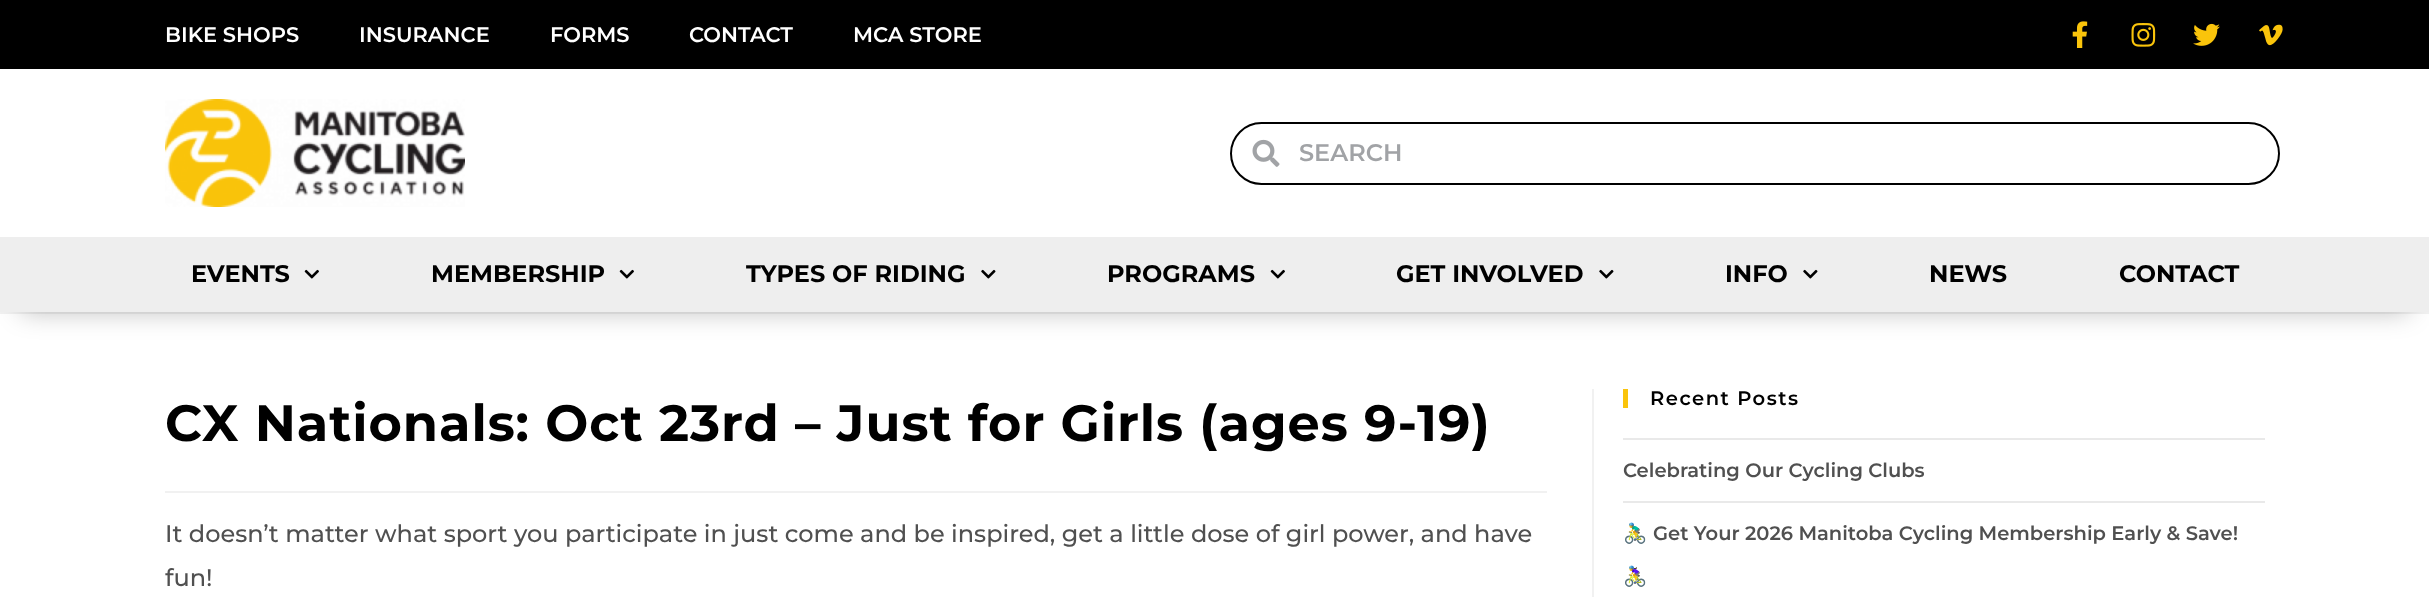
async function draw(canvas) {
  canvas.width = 2429
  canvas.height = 597
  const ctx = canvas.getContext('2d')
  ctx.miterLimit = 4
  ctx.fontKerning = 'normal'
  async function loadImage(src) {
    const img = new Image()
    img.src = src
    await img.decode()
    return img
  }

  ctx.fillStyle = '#fff'
  ctx.fillRect(0, 0, 2429, 597)
  ctx.fillStyle = '#f1f1f1'
  ctx.fillRect(0, 312, 2429, 2)
  ctx.fillStyle = '#000'
  ctx.fillRect(0, 0, 2429, 69)
  ctx.font = '600 21px Montserrat'
  ctx.fillStyle = '#fff'
  ctx.fillText('BIKE SHOPS', 165, 42)
  ctx.fillText('INSURANCE', 359, 42)
  ctx.fillText('FORMS', 550, 42)
  ctx.fillText('CONTACT', 689, 42)
  ctx.fillText('MCA STORE', 853, 42)
  ctx.drawImage(await loadImage('image0.png'), 2072, 21, 16, 27)
  ctx.drawImage(await loadImage('image1.png'), 2131, 23, 25, 24)
  ctx.drawImage(await loadImage('image2.png'), 2193, 23, 27, 23)
  ctx.drawImage(await loadImage('image3.png'), 2259, 24, 24, 22)
  ctx.drawImage(await loadImage('image4.png'), 165, 99, 300, 108)
  ctx.beginPath()
  ctx.roundRect(1231, 123, 1048, 61, 30.5)
  ctx.strokeStyle = '#000'
  ctx.lineWidth = 2
  ctx.stroke()
  ctx.drawImage(await loadImage('image5.png'), 1252, 139, 28, 28)
  ctx.font = '600 24px Montserrat'
  ctx.fillStyle = '#a1a3a6'
  ctx.fillText('SEARCH', 1299, 161)
  ctx.fillStyle = '#00000040'
  ctx.filter = 'blur(13px)'
  ctx.beginPath()
  ctx.rect(21, 279, 2388, 33)
  ctx.fill()
  ctx.filter = 'none'
  ctx.fillStyle = '#eee'
  ctx.fillRect(0, 237, 2429, 75)
  ctx.font = 'bold 24px Montserrat'
  ctx.fillStyle = '#000'
  ctx.fillText('EVENTS', 191, 282)
  ctx.drawImage(await loadImage('image6.png'), 304, 269, 15, 10)
  ctx.fillText('MEMBERSHIP', 431, 282)
  ctx.drawImage(await loadImage('image6.png'), 619, 269, 15, 10)
  ctx.fillText('TYPES OF RIDING', 746, 282)
  ctx.drawImage(await loadImage('image7.png'), 981, 269, 15, 10)
  ctx.fillText('PROGRAMS', 1107, 282)
  ctx.drawImage(await loadImage('image6.png'), 1270, 269, 15, 10)
  ctx.fillText('GET INVOLVED', 1396, 282)
  ctx.drawImage(await loadImage('image7.png'), 1599, 269, 15, 10)
  ctx.fillText('INFO', 1725, 282)
  ctx.drawImage(await loadImage('image7.png'), 1803, 269, 15, 10)
  ctx.fillText('NEWS', 1929, 282)
  ctx.fillText('CONTACT', 2119, 282)
  ctx.fillStyle = '#f1f1f1'
  ctx.fillRect(1592, 389, 2, 208)
  ctx.fillRect(165, 491, 1382, 2)
  ctx.letterSpacing = '0.9px'
  ctx.font = 'bold 51px Montserrat'
  ctx.fillStyle = '#000'
  ctx.fillText('CX Nationals: Oct 23rd – Just for Girls (ages 9-19)', 165, 441)
  ctx.letterSpacing = '0px'
  ctx.font = '500 24px Montserrat'
  ctx.fillStyle = '#505050'
  ctx.fillText('It doesn’t matter what sport you participate in just come and be inspired, get a little dose of girl power, and have', 165, 542)
  ctx.fillText('fun!', 165, 586)
  ctx.fillStyle = '#fac40b'
  ctx.fillRect(1623, 389, 5, 19)
  ctx.letterSpacing = '1.5px'
  ctx.font = '600 19.5px Montserrat'
  ctx.fillStyle = '#000'
  ctx.fillText('Recent Posts', 1650, 405)
  ctx.fillStyle = '#e9e9e9'
  ctx.fillRect(1623, 438, 642, 2)
  ctx.fillRect(1623, 501, 642, 2)
  ctx.letterSpacing = '0px'
  ctx.fillStyle = '#505050'
  ctx.fillText('Celebrating Our Cycling Clubs', 1623, 477)
  ctx.font = 'bold 19.5px Noto Color Emoji'
  ctx.fillText('🚴‍♂️', 1623, 540)
  ctx.font = '600 19.5px Montserrat'
  ctx.fillText('Get Your 2026 Manitoba Cycling Membership Early & Save!', 1653, 540)
  ctx.font = 'bold 19.5px Noto Color Emoji'
  ctx.fillText('🚴‍♀️', 1623, 583)
}

draw(document.querySelector('canvas'))
